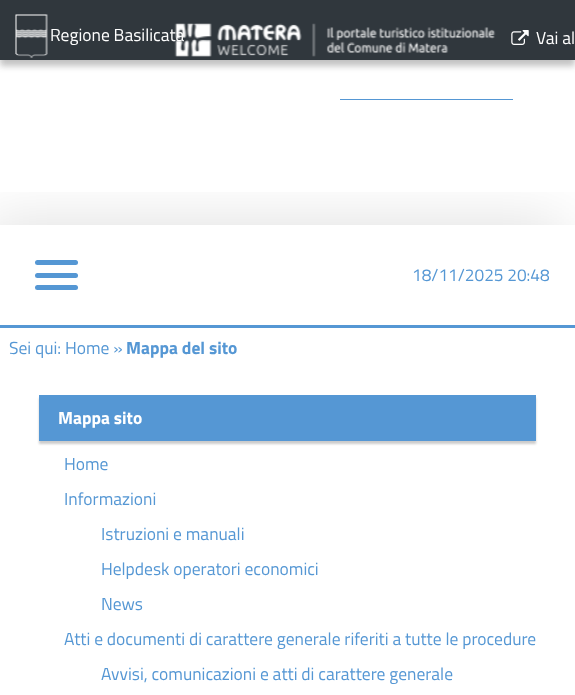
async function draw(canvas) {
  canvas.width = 575
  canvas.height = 695
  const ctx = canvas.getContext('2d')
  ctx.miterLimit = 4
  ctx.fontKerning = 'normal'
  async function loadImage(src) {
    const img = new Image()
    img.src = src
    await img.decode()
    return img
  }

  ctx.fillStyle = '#fff'
  ctx.fillRect(0, 0, 575, 695)
  ctx.save()
  ctx.beginPath()
  ctx.rect(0, 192, 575, 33)
  ctx.clip()
  ctx.fillStyle = '#00000021'
  ctx.filter = 'blur(31px)'
  ctx.beginPath()
  ctx.rect(-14, 224, 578, 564)
  ctx.fill()
  ctx.filter = 'none'
  ctx.restore()
  ctx.fillStyle = '#3636364d'
  ctx.filter = 'blur(3px)'
  ctx.beginPath()
  ctx.rect(0, 6, 575, 60)
  ctx.fill()
  ctx.filter = 'none'
  ctx.fillStyle = '#30373d'
  ctx.fillRect(0, 0, 575, 60)
  ctx.drawImage(await loadImage('image0.png'), 15, 14, 33, 44)
  ctx.font = '17.5px Titillium Web'
  ctx.fillStyle = '#fff'
  ctx.fillText('Regione Basilicata', 50, 41)
  ctx.drawImage(await loadImage('image1.png'), 174, 23, 322, 34)
  ctx.drawImage(await loadImage('image2.png'), 511, 30, 18, 15)
  ctx.fillText('Vai al', 536, 44)
  ctx.fillStyle = '#5597d4'
  ctx.fillRect(340, 99, 173, 1)
  ctx.beginPath()
  ctx.roundRect(35, 260, 43, 5, 2.5)
  ctx.fill()
  ctx.beginPath()
  ctx.roundRect(35, 273, 43, 5, 2.5)
  ctx.fill()
  ctx.beginPath()
  ctx.roundRect(35, 285, 43, 5, 2.5)
  ctx.fill()
  ctx.font = '17.25px Titillium Web'
  ctx.fillText('18/11/2025 20:48', 412, 281)
  ctx.fillRect(0, 325, 575, 3)
  ctx.font = '17.5px Titillium Web'
  ctx.fillText('Sei qui: Home »', 9, 354)
  ctx.font = 'bold 17.5px Titillium Web'
  ctx.fillText('Mappa del sito', 126, 354)
  ctx.fillStyle = '#00000033'
  ctx.filter = 'blur(1px)'
  ctx.beginPath()
  ctx.rect(39, 398, 497, 46)
  ctx.fill()
  ctx.filter = 'none'
  ctx.fillStyle = '#5597d4'
  ctx.fillRect(39, 395, 497, 46)
  ctx.fillStyle = '#fff'
  ctx.fillText('Mappa sito', 58, 424)
  ctx.font = '17.5px Titillium Web'
  ctx.fillStyle = '#5597d4'
  ctx.fillText('Home', 64, 470)
  ctx.fillText('Informazioni', 64, 505)
  ctx.fillText('Istruzioni e manuali', 101, 540)
  ctx.fillText('Helpdesk operatori economici', 101, 575)
  ctx.fillText('News', 101, 610)
  ctx.fillText('Atti e documenti di carattere generale riferiti a tutte le procedure', 64, 645)
  ctx.fillText('Avvisi, comunicazioni e atti di carattere generale', 101, 680)
}

draw(document.querySelector('canvas'))
